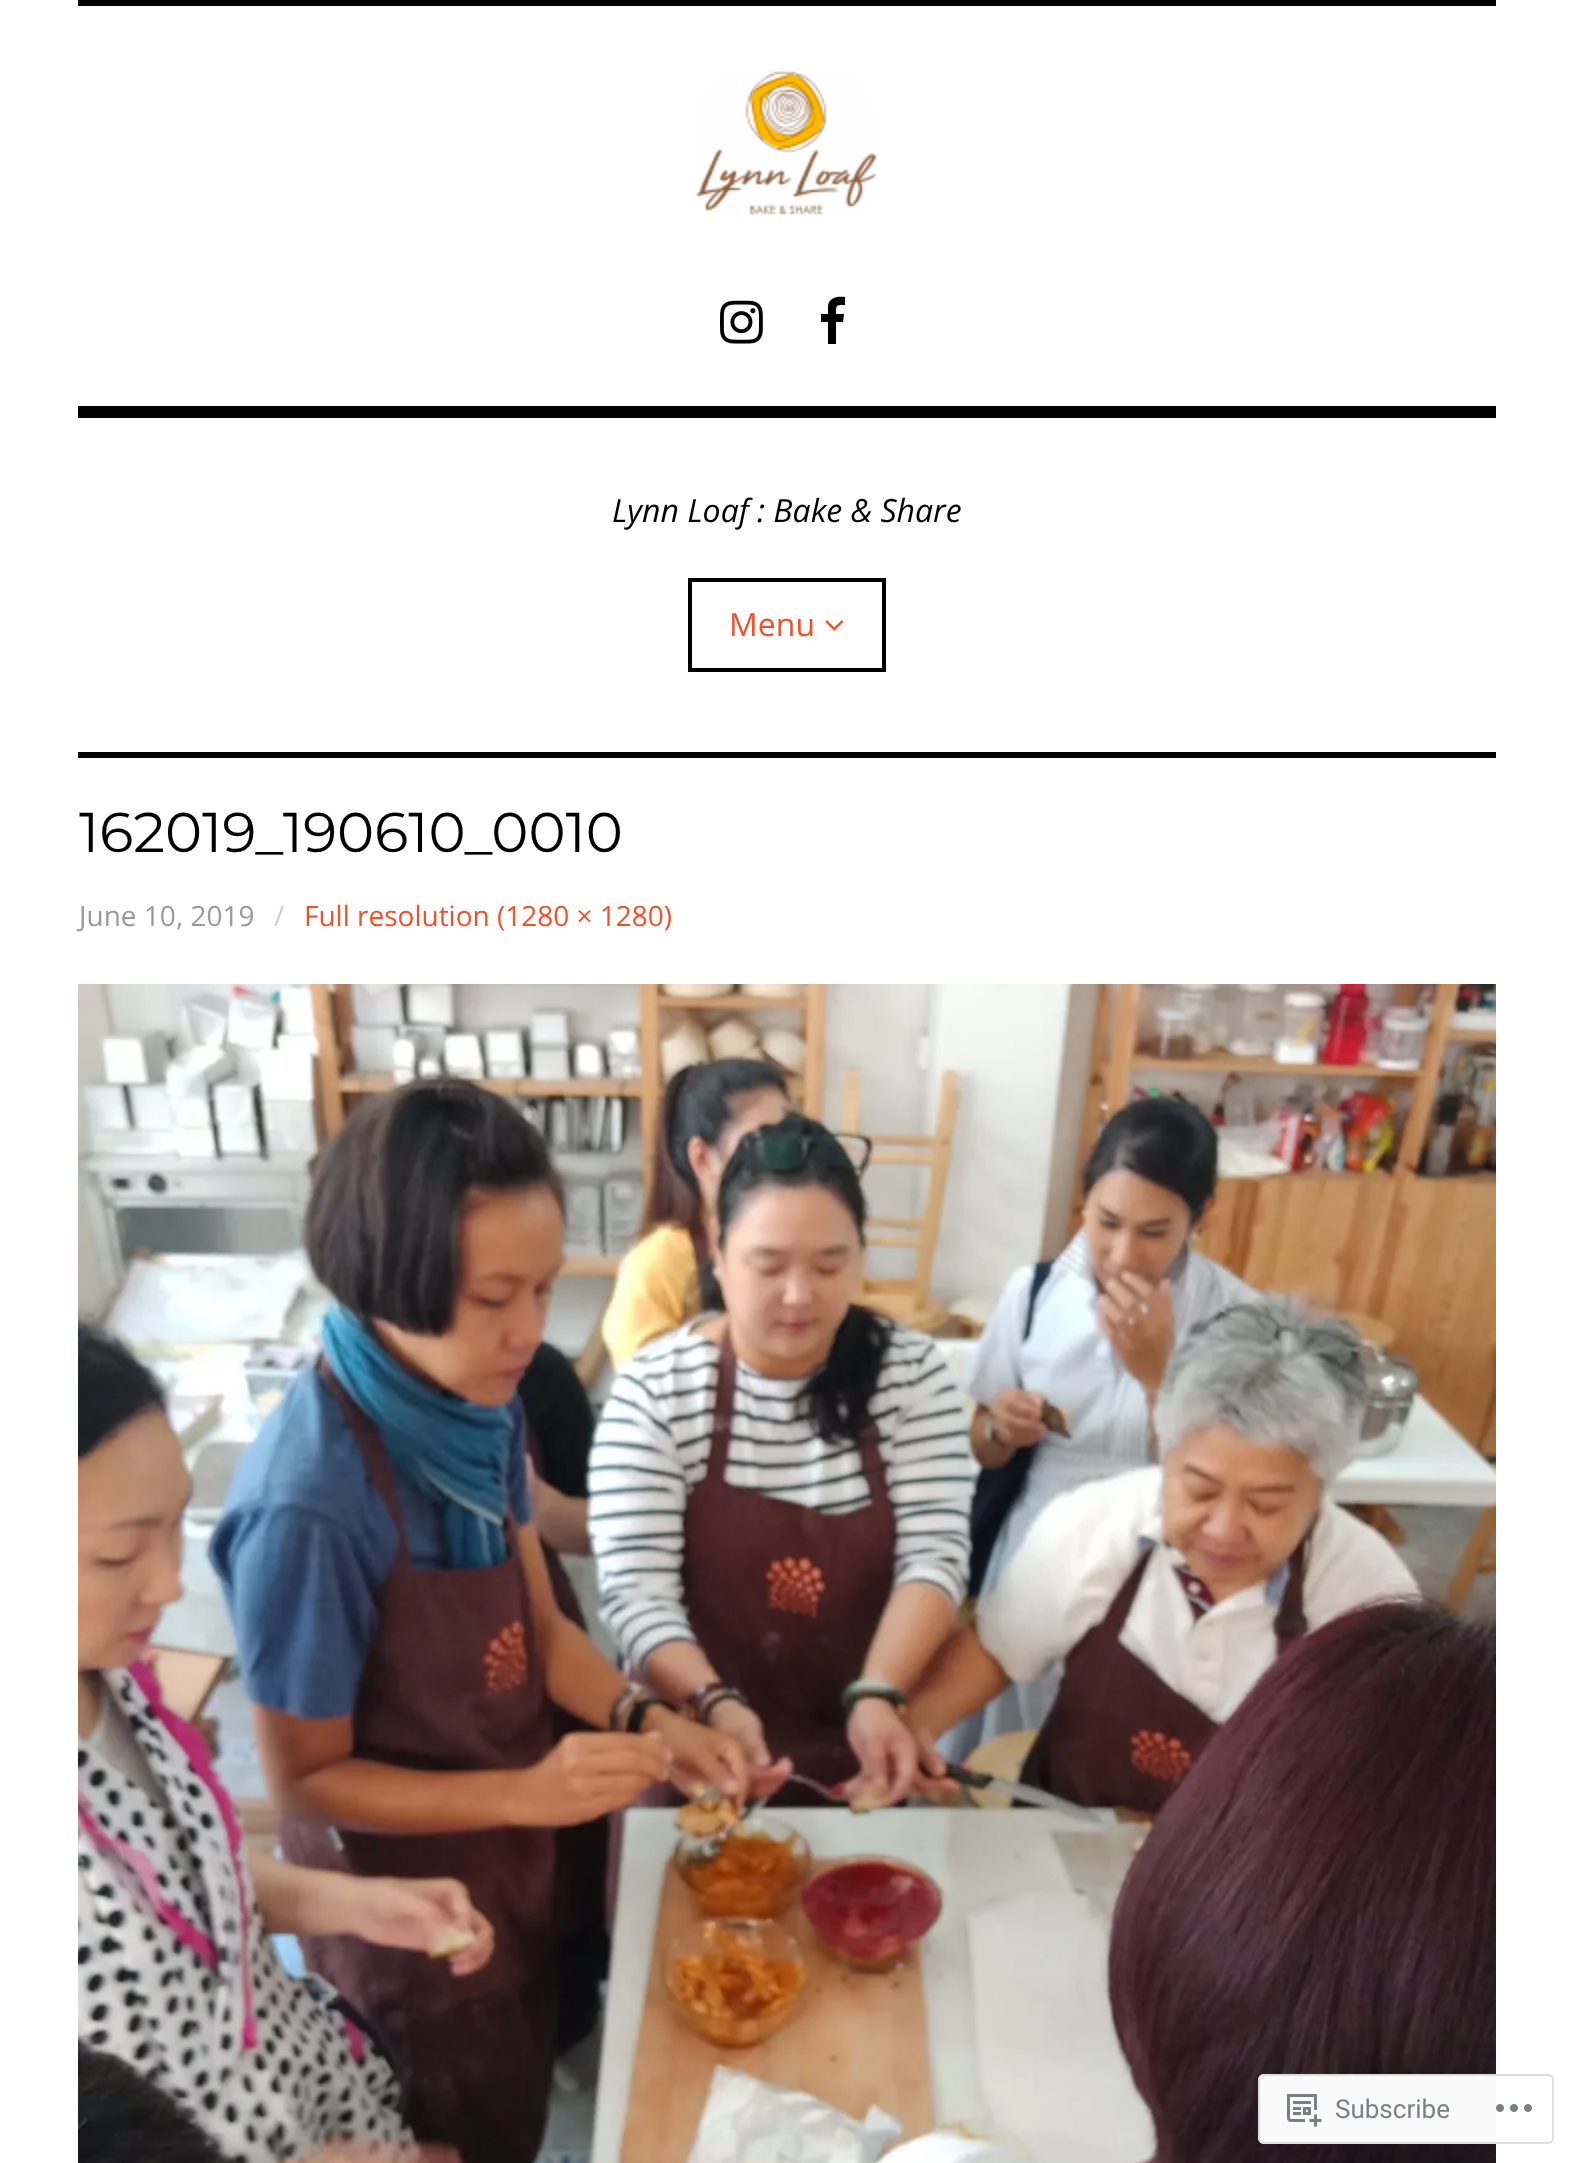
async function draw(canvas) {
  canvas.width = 1574
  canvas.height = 2163
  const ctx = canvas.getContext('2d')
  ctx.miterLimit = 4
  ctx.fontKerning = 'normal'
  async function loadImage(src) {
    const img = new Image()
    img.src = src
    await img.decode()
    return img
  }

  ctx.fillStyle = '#fff'
  ctx.fillRect(0, 0, 1574, 2163)
  ctx.fillStyle = '#000'
  ctx.fillRect(78, 0, 1418, 6)
  ctx.fillRect(78, 406, 1418, 12)
  ctx.drawImage(await loadImage('image0.png'), 695, 71, 182, 144)
  ctx.drawImage(await loadImage('image1.png'), 720, 300, 43, 44)
  ctx.beginPath()
  ctx.moveTo(845, 297)
  ctx.lineTo(845, 305)
  ctx.bezierCurveTo(836, 305, 836, 305, 836, 314)
  ctx.lineTo(844, 314)
  ctx.lineTo(843, 322)
  ctx.lineTo(836, 322)
  ctx.lineTo(836, 344)
  ctx.lineTo(828, 344)
  ctx.lineTo(828, 322)
  ctx.lineTo(821, 322)
  ctx.lineTo(821, 314)
  ctx.lineTo(828, 314)
  ctx.lineTo(828, 306)
  ctx.bezierCurveTo(829, 297, 838, 296, 845, 297)
  ctx.closePath()
  ctx.fill()
  ctx.font = 'italic 32px Open Sans'
  ctx.fillText('Lynn Loaf : Bake & Share', 612, 522)
  ctx.strokeStyle = '#000'
  ctx.lineWidth = 4
  ctx.strokeRect(690, 580, 194, 90)
  ctx.font = '32px Open Sans'
  ctx.fillStyle = '#f35029'
  ctx.fillText('Menu', 729, 636)
  ctx.drawImage(await loadImage('image2.png'), 825, 620, 19, 11)
  ctx.fillStyle = '#000'
  ctx.fillRect(78, 752, 1418, 6)
  ctx.font = '100 56px Montserrat'
  ctx.fillText('162019_190610_0010', 79, 852)
  ctx.font = '28px Open Sans'
  ctx.fillStyle = '#999'
  ctx.fillText('June 10, 2019', 79, 926)
  ctx.fillStyle = '#ccc'
  ctx.fillText('/', 274, 926)
  ctx.fillStyle = '#f35029'
  ctx.fillText('Full resolution (1280 × 1280)', 304, 926)
  ctx.drawImage(await loadImage('image3.png'), 78, 984, 1418, 1179)
  ctx.fillStyle = '#fffffffa'
  ctx.beginPath()
  ctx.roundRect(1258, 2074, 296, 70, 6)
  ctx.fill()
  ctx.beginPath()
  ctx.roundRect(1259, 2075, 294, 68, 5)
  ctx.strokeStyle = '#dcdcdefa'
  ctx.lineWidth = 2
  ctx.stroke()
  ctx.drawImage(await loadImage('image4.png'), 1287, 2094, 35, 33)
  ctx.font = '26px Roboto'
  ctx.fillStyle = '#7b7f84'
  ctx.fillText('Subscribe', 1335, 2118)
  ctx.drawImage(await loadImage('image5.png'), 1496, 2104, 36, 8)
}

draw(document.querySelector('canvas'))
